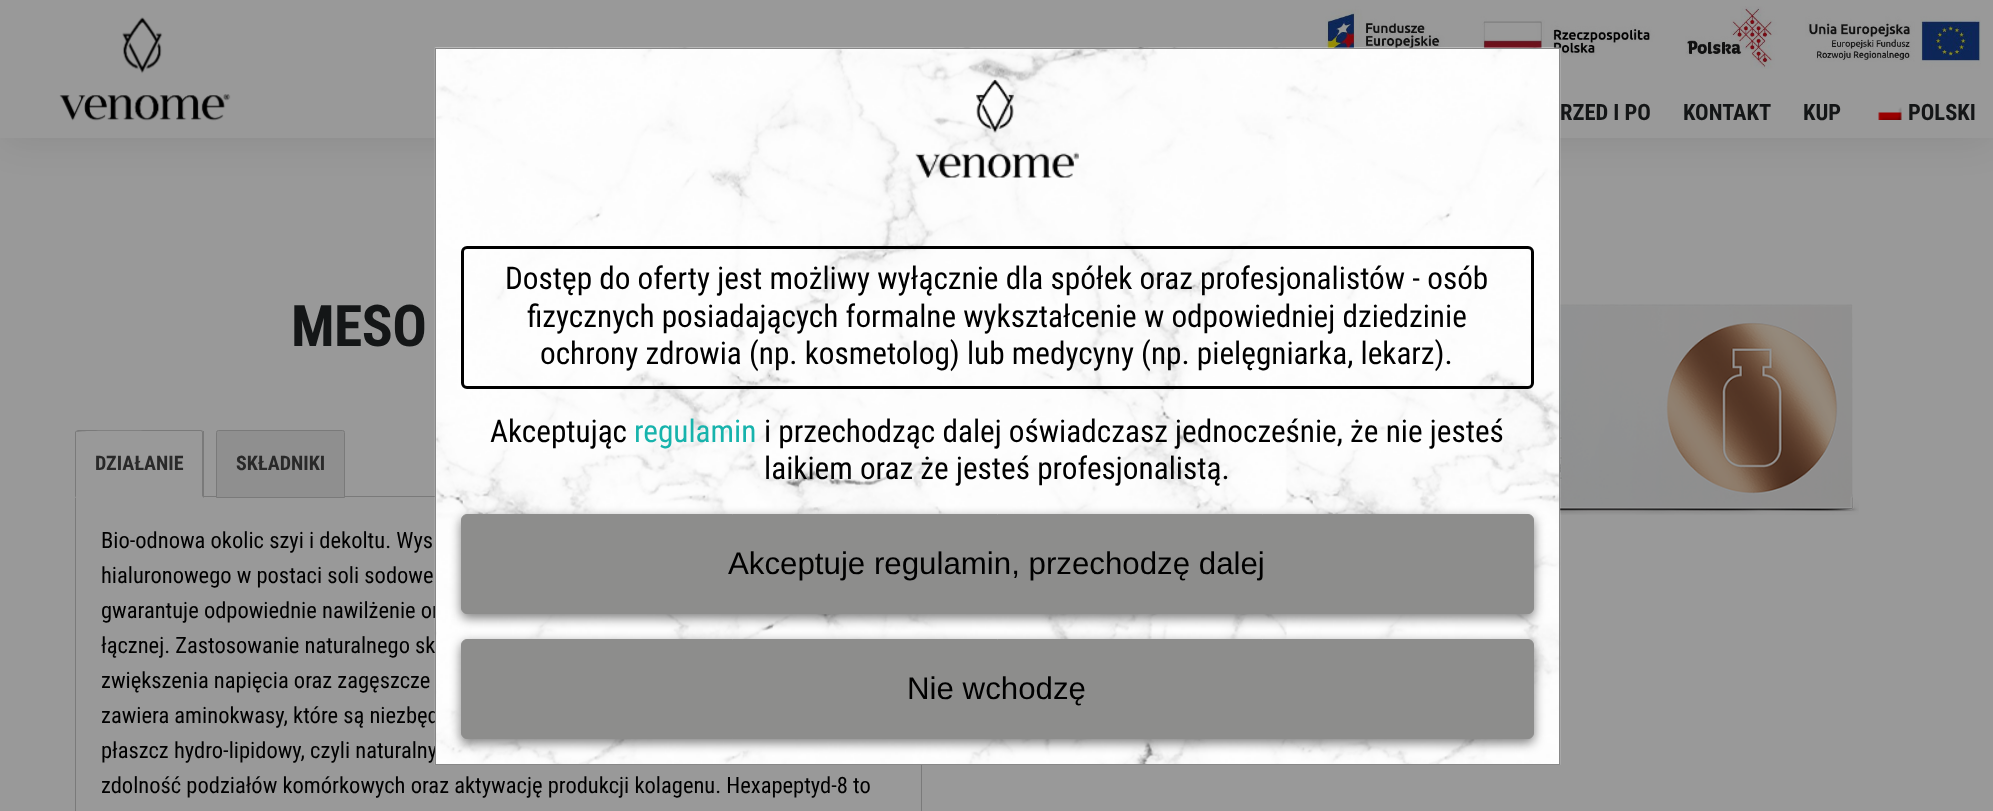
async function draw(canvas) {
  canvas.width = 1993
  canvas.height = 811
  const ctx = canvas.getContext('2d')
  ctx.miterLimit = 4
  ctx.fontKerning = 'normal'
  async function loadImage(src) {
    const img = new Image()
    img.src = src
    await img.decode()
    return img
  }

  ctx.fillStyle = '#999'
  ctx.fillRect(0, 0, 1993, 811)
  ctx.fillStyle = '#00000017'
  ctx.filter = 'blur(19px)'
  ctx.beginPath()
  ctx.rect(3, 8, 1988, 132)
  ctx.fill()
  ctx.filter = 'none'
  ctx.fillStyle = '#999'
  ctx.fillRect(0, 0, 1993, 138)
  ctx.drawImage(await loadImage('image0.png'), 59, 17, 172, 104)
  ctx.drawImage(await loadImage('image1.png'), 1325, 6, 656, 63)
  ctx.font = 'bold 22.5px Roboto Condensed'
  ctx.fillStyle = '#141617'
  ctx.fillText('RZED I PO', 1560, 120)
  ctx.fillText('KONTAKT', 1683, 120)
  ctx.fillText('KUP', 1803, 120)
  ctx.drawImage(await loadImage('image2.png'), 1878, 107, 24, 13)
  ctx.fillText('POLSKI', 1908, 120)
  ctx.letterSpacing = '-0.5px'
  ctx.font = 'bold 57.5px Roboto Condensed'
  ctx.fillText('MESO', 291, 346)
  ctx.fillStyle = '#7a7a7a'
  ctx.fillRect(204, 496, 231, 1)
  ctx.beginPath()
  ctx.moveTo(78, 430)
  ctx.lineTo(76, 431)
  ctx.lineTo(77, 432)
  ctx.bezierCurveTo(79, 430, 151, 431, 160, 431)
  ctx.lineTo(201, 431)
  ctx.lineTo(202, 432)
  ctx.lineTo(203, 431)
  ctx.lineTo(201, 430)
  ctx.closePath()
  ctx.fill()
  ctx.beginPath()
  ctx.moveTo(203, 431)
  ctx.lineTo(204, 431)
  ctx.lineTo(204, 498)
  ctx.lineTo(202, 496)
  ctx.lineTo(202, 432)
  ctx.closePath()
  ctx.fill()
  ctx.beginPath()
  ctx.moveTo(75, 498)
  ctx.lineTo(76, 496)
  ctx.lineTo(76, 432)
  ctx.lineTo(77, 432)
  ctx.lineTo(76, 431)
  ctx.lineTo(75, 432)
  ctx.closePath()
  ctx.fill()
  ctx.letterSpacing = '0px'
  ctx.font = 'bold 20px Roboto Condensed'
  ctx.fillStyle = '#292929'
  ctx.fillText('DZIAŁANIE', 95, 470)
  ctx.fillStyle = '#8f8f8f'
  ctx.beginPath()
  ctx.roundRect(216.5, 430.5, 128, 67, [2, 2, 0, 0])
  ctx.fill()
  ctx.strokeStyle = '#7a7a7a'
  ctx.stroke()
  ctx.fillStyle = '#292929'
  ctx.fillText('SKŁADNIKI', 236, 470)
  ctx.fillStyle = '#7a7a7a'
  ctx.fillRect(921, 765, 1, 46)
  ctx.fillRect(75, 498, 1, 313)
  ctx.font = '22.5px Roboto Condensed'
  ctx.fillStyle = '#000'
  ctx.fillText('Bio-odnowa okolic szyi i dekoltu. Wys', 101, 548)
  ctx.fillText('hialuronowego w postaci soli sodowe', 101, 583)
  ctx.fillText('gwarantuje odpowiednie nawilżenie or', 101, 618)
  ctx.fillText('łącznej. Zastosowanie naturalnego sk', 101, 653)
  ctx.fillText('zwiększenia napięcia oraz zagęszcze', 101, 688)
  ctx.fillText('zawiera aminokwasy, które są niezbęd', 101, 723)
  ctx.fillText('płaszcz hydro-lipidowy, czyli naturalny', 101, 758)
  ctx.fillText('zdolność podziałów komórkowych oraz aktywację produkcji kolagenu. Hexapeptyd-8 to', 101, 793)
  ctx.drawImage(await loadImage('image3.png'), 1560, 304, 299, 211)
  ctx.fillStyle = '#fff'
  ctx.fillRect(436, 49, 1123, 715)
  ctx.drawImage(await loadImage('image4.png'), 434, 47, 1127, 718)
  ctx.strokeStyle = '#888'
  ctx.strokeRect(435.5, 48.5, 1124, 716)
  ctx.drawImage(await loadImage('image5.png'), 915, 79, 164, 99)
  ctx.beginPath()
  ctx.roundRect(462.5, 247.5, 1070, 140, 4.5)
  ctx.strokeStyle = '#000'
  ctx.lineWidth = 3
  ctx.stroke()
  ctx.font = '31.25px Roboto Condensed'
  ctx.fillStyle = '#000'
  ctx.fillText('Dostęp do oferty jest możliwy wyłącznie dla spółek oraz profesjonalistów - osób', 505, 289)
  ctx.fillText('fizycznych posiadających formalne wykształcenie w odpowiedniej dziedzinie', 527, 327)
  ctx.fillText('ochrony zdrowia (np. kosmetolog) lub medycyny (np. pielęgniarka, lekarz).', 540, 364)
  ctx.fillText('Akceptując', 490, 442)
  ctx.fillStyle = '#17b3ac'
  ctx.fillText('regulamin', 634, 442)
  ctx.fillStyle = '#000'
  ctx.fillText('i przechodząc dalej oświadczasz jednocześnie, że nie jesteś', 764, 442)
  ctx.fillText('laikiem oraz że jesteś profesjonalistą.', 764, 479)
  ctx.fillStyle = '#00000080'
  ctx.filter = 'blur(5.5px)'
  ctx.beginPath()
  ctx.roundRect(461, 518, 1073, 100, 6)
  ctx.fill()
  ctx.filter = 'none'
  ctx.fillStyle = '#8d8d8c'
  ctx.beginPath()
  ctx.roundRect(461.5, 514.5, 1072, 99, 5.5)
  ctx.fill()
  ctx.strokeStyle = '#8d8d8c'
  ctx.lineWidth = 1
  ctx.stroke()
  ctx.font = '31.25px Liberation Sans'
  ctx.fillStyle = '#000'
  ctx.fillText('Akceptuje regulamin, przechodzę dalej', 728, 574)
  ctx.fillStyle = '#00000080'
  ctx.filter = 'blur(5.5px)'
  ctx.beginPath()
  ctx.roundRect(461, 643, 1073, 100, 6)
  ctx.fill()
  ctx.filter = 'none'
  ctx.fillStyle = '#8d8d8c'
  ctx.beginPath()
  ctx.roundRect(461.5, 639.5, 1072, 99, 5.5)
  ctx.fill()
  ctx.stroke()
  ctx.fillStyle = '#000'
  ctx.fillText('Nie wchodzę', 907, 699)
}

draw(document.querySelector('canvas'))
